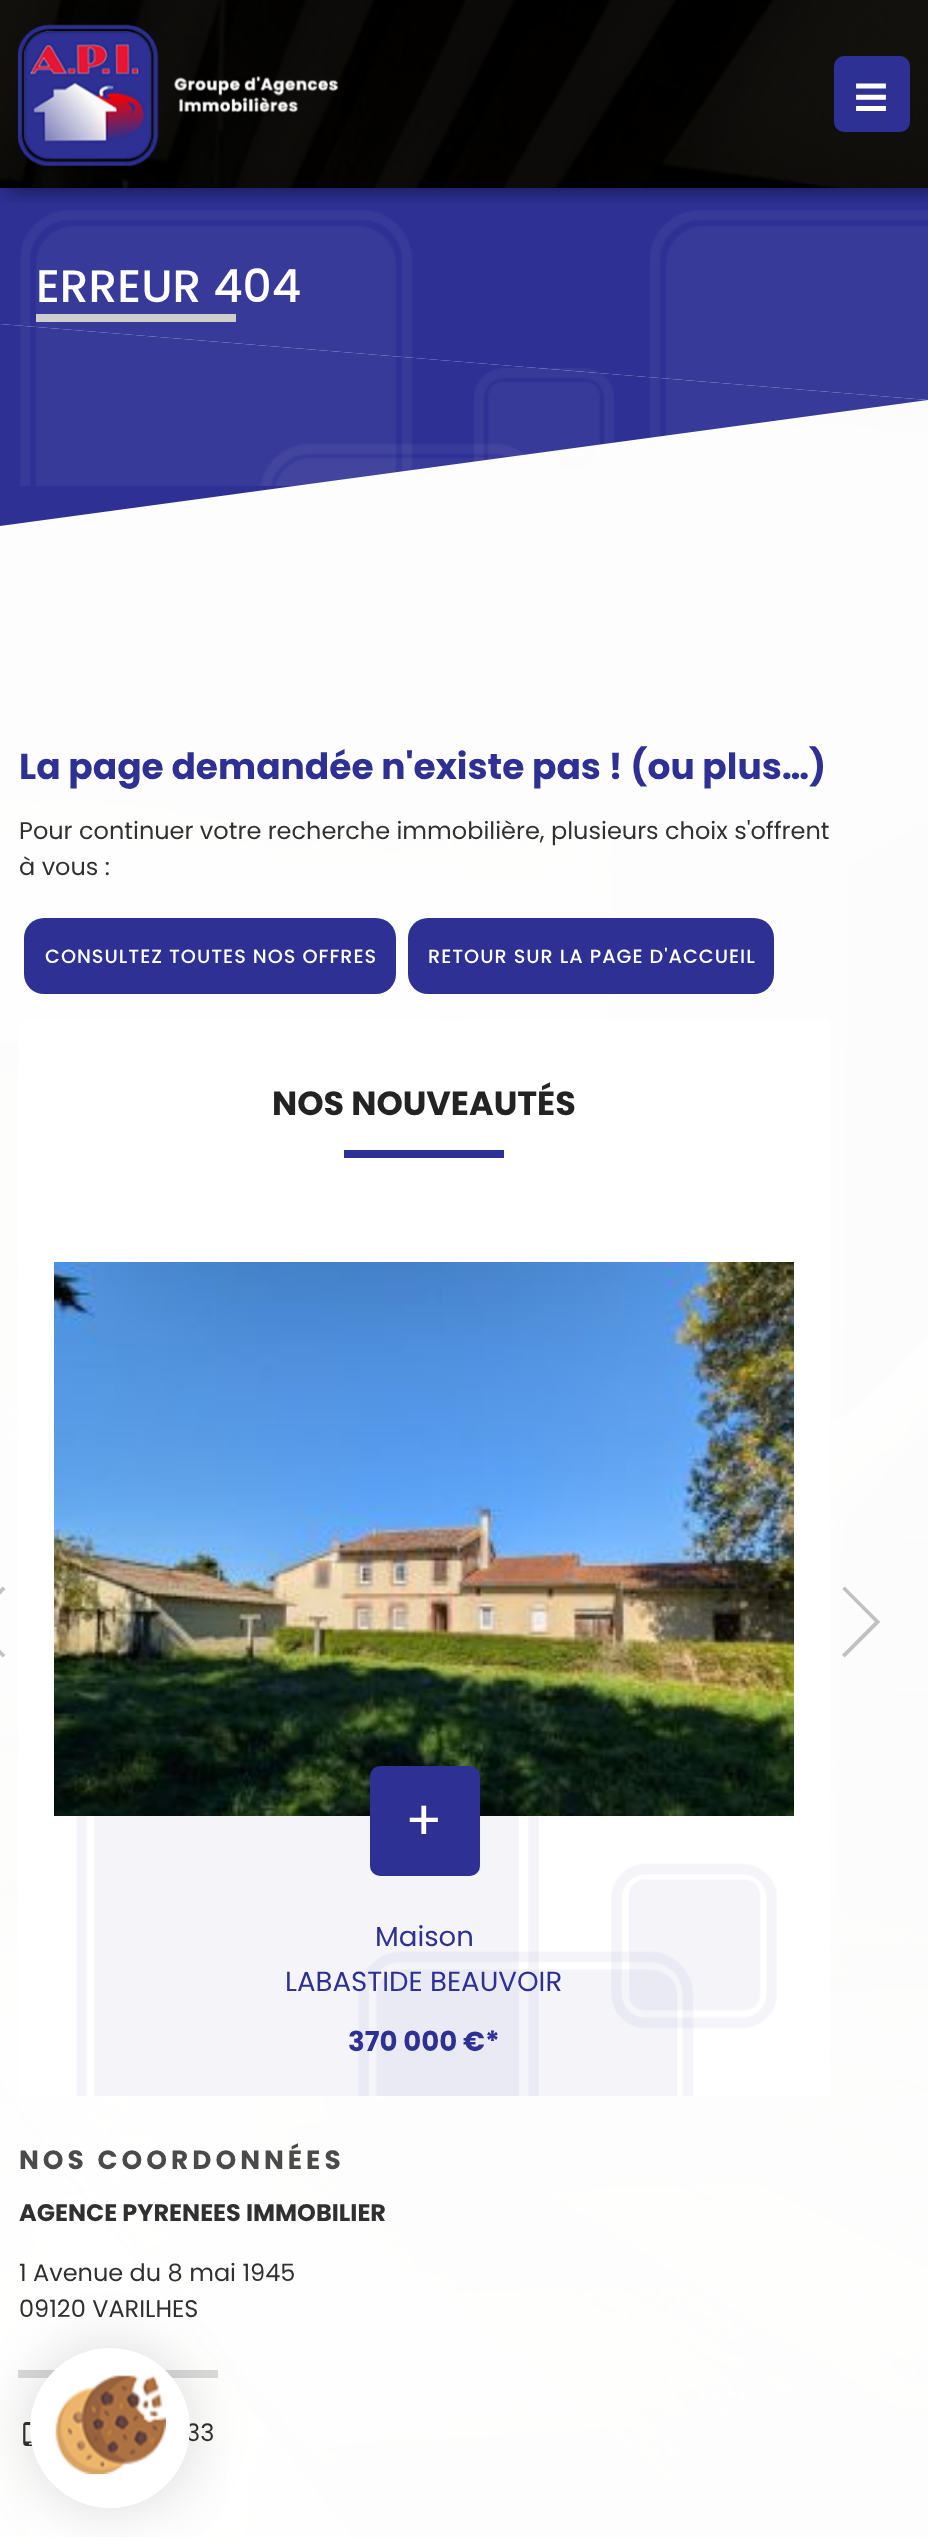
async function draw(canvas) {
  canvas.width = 928
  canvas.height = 2537
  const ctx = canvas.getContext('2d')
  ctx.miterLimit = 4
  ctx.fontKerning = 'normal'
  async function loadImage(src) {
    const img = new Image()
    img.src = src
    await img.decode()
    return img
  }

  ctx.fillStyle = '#fff'
  ctx.fillRect(0, 0, 928, 2537)
  ctx.drawImage(await loadImage('image0.png'), 0, 0, 928, 2537)
  ctx.fillStyle = '#2e3094'
  ctx.fillRect(0, 188, 928, 136)
  ctx.font = '500 45.5px Poppins'
  ctx.fillStyle = '#fff'
  ctx.fillText('ERREUR 404', 36, 302)
  ctx.fillStyle = '#ccc'
  ctx.fillRect(36, 314, 200, 8)
  ctx.fillStyle = '#2e3094'
  ctx.beginPath()
  ctx.moveTo(0, 324)
  ctx.lineTo(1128, 324)
  ctx.lineTo(928, 400)
  ctx.closePath()
  ctx.fill()
  ctx.beginPath()
  ctx.moveTo(0, 526)
  ctx.lineTo(0, 324)
  ctx.lineTo(928, 400)
  ctx.closePath()
  ctx.fill()
  ctx.drawImage(await loadImage('image3.png'), 20, 210, 908, 276)
  ctx.save()
  ctx.beginPath()
  ctx.rect(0, 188, 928, 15)
  ctx.clip()
  ctx.fillStyle = '#0000004f'
  ctx.filter = 'blur(10px)'
  ctx.beginPath()
  ctx.rect(8, 0, 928, 188)
  ctx.fill()
  ctx.filter = 'none'
  ctx.restore()
  ctx.fillStyle = '#00000080'
  ctx.fillRect(0, 0, 928, 188)
  ctx.save()
  ctx.beginPath()
  ctx.rect(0, 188, 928, 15)
  ctx.clip()
  ctx.fillStyle = '#0000004f'
  ctx.filter = 'blur(10px)'
  ctx.beginPath()
  ctx.rect(8, 0, 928, 188)
  ctx.fill()
  ctx.filter = 'none'
  ctx.restore()
  ctx.fillRect(0, 0, 928, 188)
  ctx.drawImage(await loadImage('image1.png'), 18, 24, 321, 142)
  ctx.fillStyle = '#2e3094'
  ctx.beginPath()
  ctx.roundRect(834, 56, 76, 76, 10)
  ctx.fill()
  ctx.drawImage(await loadImage('image2.png'), 856, 83, 30, 28)
  ctx.font = 'bold 36px Poppins'
  ctx.fillText('La page demandée n\'existe pas ! (ou plus…)', 19, 779)
  ctx.font = '24px Poppins'
  ctx.fillStyle = '#303030'
  ctx.fillText('Pour continuer votre recherche immobilière, plusieurs choix s\'offrent', 19, 839)
  ctx.fillText('à vous :', 19, 875)
  ctx.fillStyle = '#2e3094'
  ctx.beginPath()
  ctx.roundRect(24, 918, 372, 76, 20)
  ctx.fill()
  ctx.letterSpacing = '1px'
  ctx.font = '500 19.25px Poppins'
  ctx.fillStyle = '#fff'
  ctx.fillText('CONSULTEZ TOUTES NOS OFFRES', 45, 963)
  ctx.fillStyle = '#2e3094'
  ctx.beginPath()
  ctx.roundRect(408, 918, 366, 76, 20)
  ctx.fill()
  ctx.fillStyle = '#fff'
  ctx.fillText('RETOUR SUR LA PAGE D\'ACCUEIL', 428, 963)
  ctx.fillRect(18, 1020, 812, 1076)
  ctx.letterSpacing = '0px'
  ctx.font = 'bold 33.5px Poppins'
  ctx.fillStyle = '#232323'
  ctx.fillText('NOS NOUVEAUTÉS', 272, 1115)
  ctx.fillStyle = '#2e3094'
  ctx.fillRect(344, 1150, 160, 8)
  ctx.drawImage(await loadImage('image4.png'), 0, 1586, 6, 72)
  ctx.drawImage(await loadImage('image5.png'), 842, 1586, 38, 72)
  ctx.drawImage(await loadImage('image6.png'), 54, 1262, 740, 554)
  ctx.drawImage(await loadImage('image7.png'), 76, 1816, 701, 280)
  ctx.beginPath()
  ctx.roundRect(370, 1766, 110, 110, 10)
  ctx.fill()
  ctx.font = '55px Poppins'
  ctx.fillStyle = '#fff'
  ctx.fillText('+', 405, 1840)
  ctx.font = '27.6px Poppins'
  ctx.fillStyle = '#2e3094'
  ctx.fillText('Maison', 375, 1946)
  ctx.fillText('LABASTIDE BEAUVOIR', 285, 1991)
  ctx.font = 'bold 27.6px Poppins'
  ctx.fillText('370 000 €*', 348, 2051)
  ctx.letterSpacing = '4px'
  ctx.font = 'bold 26.4px Poppins'
  ctx.fillStyle = '#4a4a4a'
  ctx.fillText('NOS COORDONNÉES', 19, 2169)
  ctx.letterSpacing = '0px'
  ctx.font = 'bold 24px Poppins'
  ctx.fillStyle = '#303030'
  ctx.fillText('AGENCE PYRENEES IMMOBILIER', 19, 2221)
  ctx.font = '24px Poppins'
  ctx.fillText('1 Avenue du 8 mai 1945', 19, 2281)
  ctx.fillText('09120 VARILHES', 19, 2317)
  ctx.fillStyle = '#dadada'
  ctx.fillRect(18, 2370, 200, 8)
  ctx.drawImage(await loadImage('image8.png'), 23, 2422, 10, 24)
  ctx.fillStyle = '#303030'
  ctx.fillText('33', 186, 2441)
  ctx.fillStyle = '#00000026'
  ctx.filter = 'blur(30px)'
  ctx.beginPath()
  ctx.roundRect(30, 2348, 160, 160, 80)
  ctx.fill()
  ctx.filter = 'none'
  ctx.fillStyle = '#fff'
  ctx.beginPath()
  ctx.arc(110, 2428, 80, 0, 2 * Math.PI)
  ctx.fill()
  ctx.drawImage(await loadImage('image9.png'), 55, 2375, 111, 99)
}

draw(document.querySelector('canvas'))
